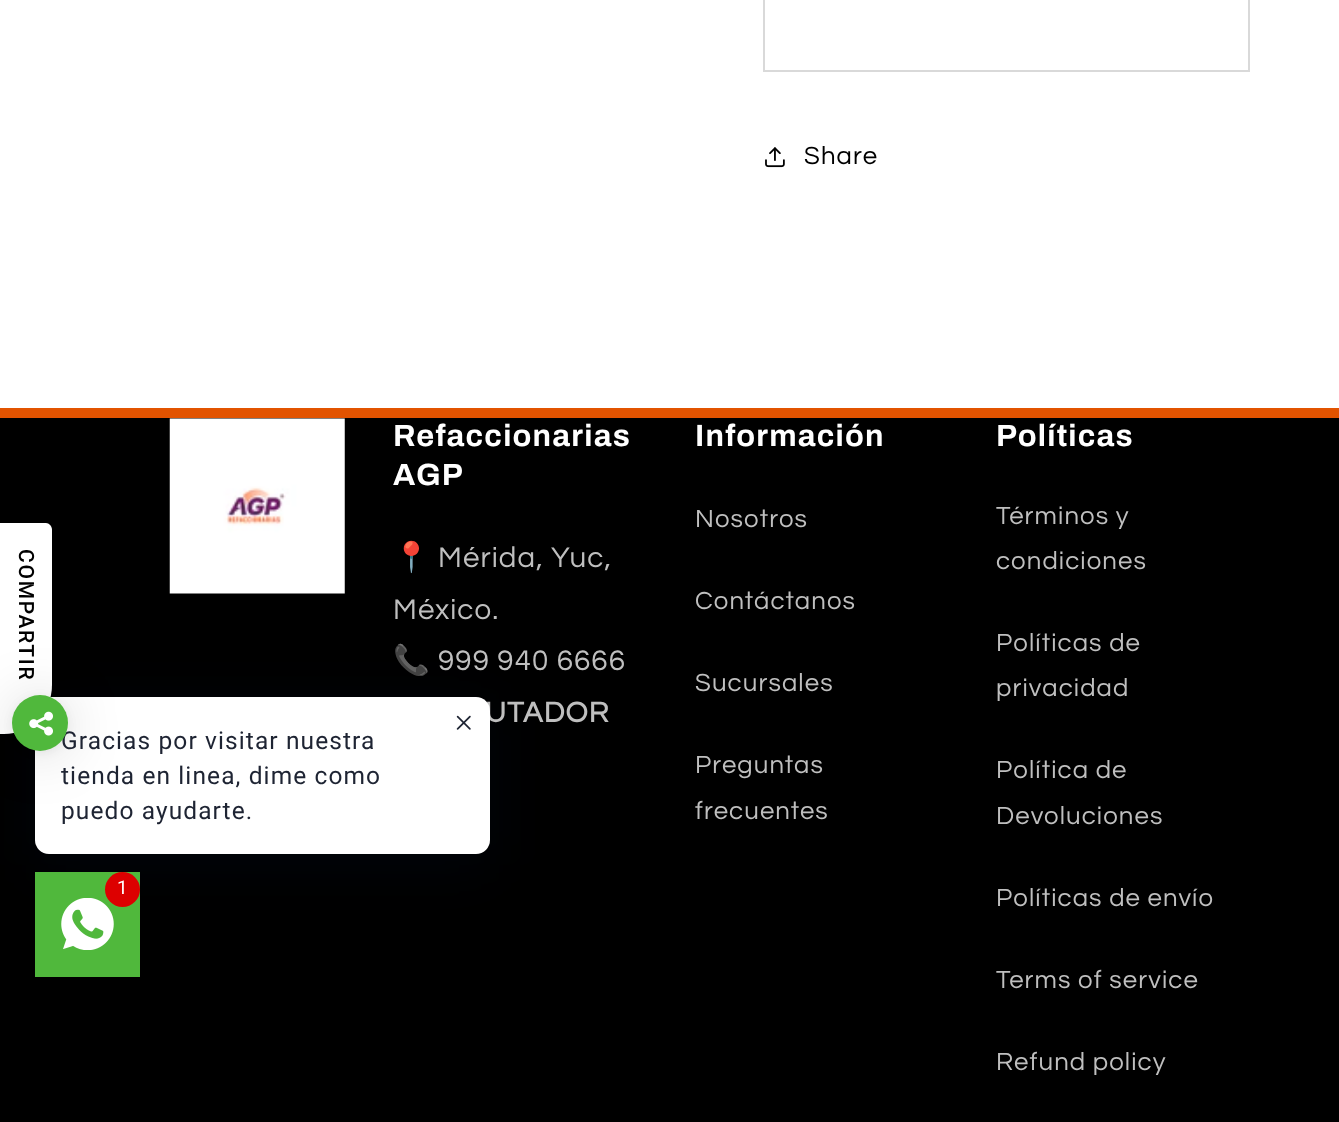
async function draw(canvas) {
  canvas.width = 1339
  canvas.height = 1122
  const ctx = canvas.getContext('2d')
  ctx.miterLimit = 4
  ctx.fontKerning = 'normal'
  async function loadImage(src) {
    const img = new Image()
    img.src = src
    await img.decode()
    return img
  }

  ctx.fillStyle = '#fff'
  ctx.fillRect(0, 0, 1339, 1122)
  ctx.strokeStyle = '#d9d9d9'
  ctx.lineWidth = 2
  ctx.strokeRect(764, -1, 485, 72)
  ctx.drawImage(await loadImage('image0.png'), 765, 147, 20, 21)
  ctx.letterSpacing = '1.1px'
  ctx.font = '25.75px Questrial'
  ctx.fillStyle = '#000'
  ctx.fillText('Share', 804, 164)
  ctx.fillStyle = '#e25300'
  ctx.fillRect(0, 408, 1339, 10)
  ctx.fillStyle = '#000'
  ctx.fillRect(0, 418, 1339, 704)
  ctx.fillStyle = '#00122e3d'
  ctx.filter = 'blur(28px)'
  ctx.beginPath()
  ctx.roundRect(35, 707, 455, 158, 14)
  ctx.fill()
  ctx.filter = 'none'
  ctx.font = 'bold 29.5px Questrial'
  ctx.fillStyle = '#bfbfbf'
  ctx.fillText('UTADOR', 485, 722)
  ctx.fillStyle = '#fff'
  ctx.beginPath()
  ctx.roundRect(35, 697, 455, 157, 14)
  ctx.fill()
  ctx.beginPath()
  ctx.moveTo(0, 734)
  ctx.lineTo(0, 523)
  ctx.lineTo(46, 523)
  ctx.bezierCurveTo(49, 523, 52, 526, 52, 530)
  ctx.lineTo(52, 685)
  ctx.bezierCurveTo(52, 712, 31, 734, 4, 734)
  ctx.closePath()
  ctx.fill()
  ctx.letterSpacing = '1.75px'
  ctx.font = '500 21px Roboto'
  ctx.fillStyle = '#000'
  ctx.save()
  ctx.translate(19, 549)
  ctx.rotate(90 * Math.PI / 180)
  ctx.fillText('COMPARTIR', 0, 0)
  ctx.restore()
  ctx.fillStyle = '#00000029'
  ctx.filter = 'blur(28px)'
  ctx.beginPath()
  ctx.roundRect(12, 698, 56, 56, 28)
  ctx.fill()
  ctx.filter = 'none'
  ctx.fillStyle = '#0000000f'
  ctx.filter = 'blur(5px)'
  ctx.beginPath()
  ctx.roundRect(12, 697, 56, 56, 28)
  ctx.fill()
  ctx.filter = 'none'
  ctx.letterSpacing = '1.1px'
  ctx.font = '24.5px Roboto'
  ctx.fillStyle = '#1e2433'
  ctx.fillText('Gracias por visitar nuestra', 61, 749)
  ctx.fillStyle = '#50b83c'
  ctx.beginPath()
  ctx.arc(40, 723, 28, 0, 2 * Math.PI)
  ctx.fill()
  ctx.drawImage(await loadImage('image1.png'), 29, 711, 24, 25)
  ctx.drawImage(await loadImage('image2.png'), 456, 715, 15, 15)
  ctx.fillStyle = '#1e2433'
  ctx.fillText('tienda en linea, dime como', 61, 784)
  ctx.fillText('puedo ayudarte.', 61, 819)
  ctx.fillStyle = '#50b83c'
  ctx.fillRect(35, 872, 105, 105)
  ctx.drawImage(await loadImage('image3.png'), 61, 898, 53, 52)
  ctx.fillStyle = '#d00'
  ctx.beginPath()
  ctx.arc(122.5, 889.5, 17.5, 0, 2 * Math.PI)
  ctx.fill()
  ctx.font = '19px Roboto'
  ctx.fillStyle = '#fff'
  ctx.fillText('1', 117, 894)
  ctx.drawImage(await loadImage('image4.png'), 169, 418, 176, 176)
  ctx.letterSpacing = '1.2px'
  ctx.font = 'bold 30.75px Archivo'
  ctx.fillText('Refaccionarias', 393, 446)
  ctx.fillText('AGP', 393, 485)
  ctx.letterSpacing = '1.1px'
  ctx.font = '29.5px Noto Color Emoji'
  ctx.fillStyle = '#bfbfbf'
  ctx.fillText('📍', 393, 567)
  ctx.font = '29.5px Questrial'
  ctx.fillText('Mérida, Yuc,', 438, 567)
  ctx.fillText('México.', 393, 619)
  ctx.font = '29.5px Noto Color Emoji'
  ctx.fillText('📞', 393, 670)
  ctx.font = '29.5px Questrial'
  ctx.fillText('999 940 6666', 438, 670)
  ctx.letterSpacing = '1.2px'
  ctx.font = 'bold 30.75px Archivo'
  ctx.fillStyle = '#fff'
  ctx.fillText('Información', 695, 446)
  ctx.letterSpacing = '1.1px'
  ctx.font = '25.75px Questrial'
  ctx.fillStyle = '#bfbfbf'
  ctx.fillText('Nosotros', 695, 527)
  ctx.fillText('Contáctanos', 695, 609)
  ctx.fillText('Sucursales', 695, 691)
  ctx.fillText('Preguntas', 695, 773)
  ctx.fillText('frecuentes', 695, 819)
  ctx.letterSpacing = '1.2px'
  ctx.font = 'bold 30.75px Archivo'
  ctx.fillStyle = '#fff'
  ctx.fillText('Políticas', 996, 446)
  ctx.letterSpacing = '1.1px'
  ctx.font = '25.75px Questrial'
  ctx.fillStyle = '#bfbfbf'
  ctx.fillText('Términos y', 996, 524)
  ctx.fillText('condiciones', 996, 569)
  ctx.fillText('Políticas de', 996, 651)
  ctx.fillText('privacidad', 996, 696)
  ctx.fillText('Política de', 996, 778)
  ctx.fillText('Devoluciones', 996, 824)
  ctx.fillText('Políticas de envío', 996, 906)
  ctx.fillText('Terms of service', 996, 988)
  ctx.fillText('Refund policy', 996, 1070)
}

draw(document.querySelector('canvas'))
